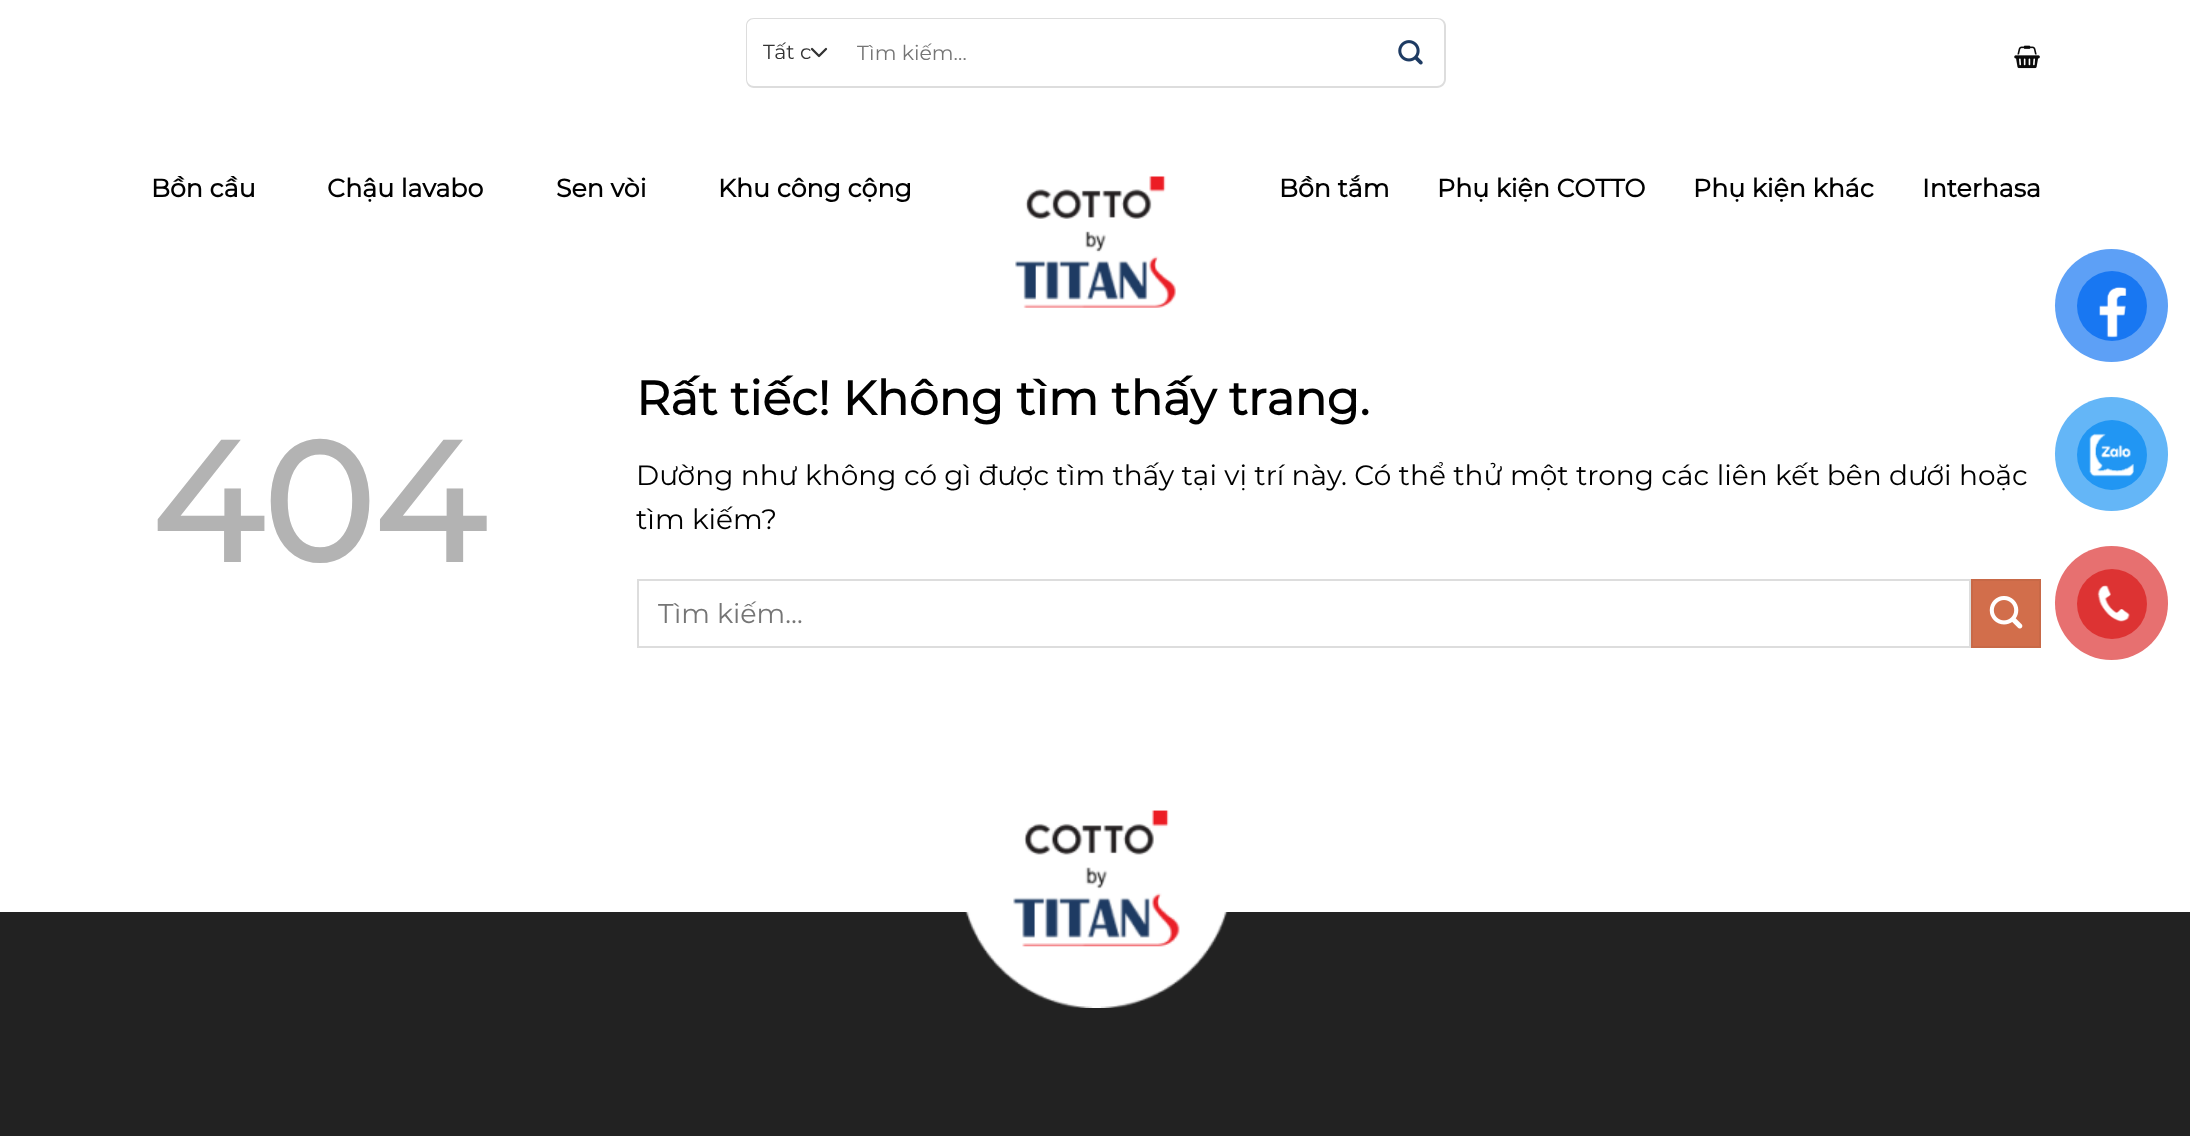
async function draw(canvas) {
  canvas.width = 2190
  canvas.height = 1136
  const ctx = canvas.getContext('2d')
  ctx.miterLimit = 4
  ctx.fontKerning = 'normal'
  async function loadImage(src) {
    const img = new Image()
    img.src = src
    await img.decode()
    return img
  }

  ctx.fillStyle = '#fff'
  ctx.fillRect(0, 0, 2190, 1136)
  ctx.beginPath()
  ctx.moveTo(812, 49)
  ctx.lineTo(819, 56)
  ctx.lineTo(826, 49)
  ctx.strokeStyle = '#333'
  ctx.lineWidth = 2.3
  ctx.lineCap = 'round'
  ctx.lineJoin = 'round'
  ctx.stroke()
  ctx.fillStyle = '#ddd'
  ctx.beginPath()
  ctx.moveTo(754, 18)
  ctx.lineTo(842, 18)
  ctx.lineTo(842, 88)
  ctx.lineTo(754, 88)
  ctx.bezierCurveTo(749, 88, 746, 84, 746, 79)
  ctx.lineTo(746, 26)
  ctx.bezierCurveTo(746, 21, 749, 18, 754, 18)
  ctx.closePath()
  ctx.moveTo(754, 19)
  ctx.lineTo(842, 19)
  ctx.lineTo(842, 86)
  ctx.lineTo(754, 86)
  ctx.bezierCurveTo(750, 86, 747, 83, 747, 79)
  ctx.lineTo(747, 26)
  ctx.bezierCurveTo(747, 22, 750, 19, 754, 19)
  ctx.closePath()
  ctx.fill('evenodd')
  ctx.font = '20.5px Montserrat'
  ctx.fillStyle = '#333'
  ctx.fillText('Tất c', 763, 59)
  ctx.fillStyle = '#ddd'
  ctx.beginPath()
  ctx.moveTo(842, 18)
  ctx.lineTo(1437, 18)
  ctx.bezierCurveTo(1442, 18, 1446, 21, 1446, 26)
  ctx.lineTo(1446, 79)
  ctx.bezierCurveTo(1446, 84, 1442, 88, 1437, 88)
  ctx.lineTo(842, 88)
  ctx.closePath()
  ctx.moveTo(842, 19)
  ctx.lineTo(1437, 19)
  ctx.bezierCurveTo(1441, 19, 1444, 22, 1444, 26)
  ctx.lineTo(1444, 79)
  ctx.bezierCurveTo(1444, 83, 1441, 86, 1437, 86)
  ctx.lineTo(842, 86)
  ctx.closePath()
  ctx.fill('evenodd')
  ctx.fillStyle = '#757575'
  ctx.fillText('Tìm kiếm…', 857, 60)
  ctx.drawImage(await loadImage('image0.png'), 1398, 40, 25, 25)
  ctx.drawImage(await loadImage('image1.png'), 2014, 45, 26, 24)
  ctx.font = 'bold 25.25px Montserrat'
  ctx.fillStyle = '#000'
  ctx.fillText('Bồn cầu', 151, 197)
  ctx.fillText('Chậu lavabo', 327, 197)
  ctx.fillText('Sen vòi', 556, 197)
  ctx.fillText('Khu công cộng', 718, 197)
  ctx.drawImage(await loadImage('image2.png'), 1015, 176, 161, 132)
  ctx.fillText('Bồn tắm', 1279, 197)
  ctx.fillText('Phụ kiện COTTO', 1437, 197)
  ctx.fillText('Phụ kiện khác', 1693, 197)
  ctx.fillText('Interhasa', 1922, 197)
  ctx.font = 'bold 168px Montserrat'
  ctx.fillStyle = '#b3b3b3'
  ctx.fillText('404', 151, 562)
  ctx.font = 'bold 47.6px Montserrat'
  ctx.fillStyle = '#000'
  ctx.fillText('Rất tiếc! Không tìm thấy trang.', 636, 415)
  ctx.font = '28px Montserrat'
  ctx.fillText('Dường như không có gì được tìm thấy tại vị trí này. Có thể thử một trong các liên kết bên dưới hoặc', 636, 485)
  ctx.fillText('tìm kiếm?', 636, 529)
  ctx.strokeStyle = '#ddd'
  ctx.lineWidth = 2
  ctx.lineJoin = 'miter'
  ctx.strokeRect(638, 580, 1332, 67)
  ctx.font = '27px Montserrat'
  ctx.fillStyle = '#757575'
  ctx.fillText('Tìm kiếm…', 658, 623)
  ctx.fillStyle = '#d26e4b'
  ctx.beginPath()
  ctx.rect(1972, 580, 68, 67)
  ctx.fill()
  ctx.strokeStyle = '#c86947'
  ctx.stroke()
  ctx.drawImage(await loadImage('image3.png'), 1989, 596, 34, 33)
  ctx.fillStyle = '#222'
  ctx.fillRect(0, 912, 2190, 224)
  ctx.drawImage(await loadImage('image4.png'), 965, 810, 263, 198)
  ctx.fillStyle = '#5da0f6'
  ctx.beginPath()
  ctx.arc(2111.5, 305.5, 56.5, 0, 2 * Math.PI)
  ctx.fill()
  ctx.fillStyle = '#1877f2'
  ctx.beginPath()
  ctx.arc(2112, 306, 35, 0, 2 * Math.PI)
  ctx.fill()
  ctx.drawImage(await loadImage('image5.png'), 2099, 286, 28, 52)
  ctx.fillStyle = '#64b6f7'
  ctx.beginPath()
  ctx.roundRect(2055, 397, 113, 114, 56.5)
  ctx.fill()
  ctx.fillStyle = '#2196f3'
  ctx.beginPath()
  ctx.arc(2112, 455, 35, 0, 2 * Math.PI)
  ctx.fill()
  ctx.drawImage(await loadImage('image6.png'), 2089, 433, 45, 44)
  ctx.fillStyle = '#e77070'
  ctx.beginPath()
  ctx.roundRect(2055, 546, 113, 114, 56.5)
  ctx.fill()
  ctx.fillStyle = '#d33'
  ctx.beginPath()
  ctx.arc(2112, 604, 35, 0, 2 * Math.PI)
  ctx.fill()
  ctx.drawImage(await loadImage('image7.png'), 2097, 585, 33, 37)
}

draw(document.querySelector('canvas'))
